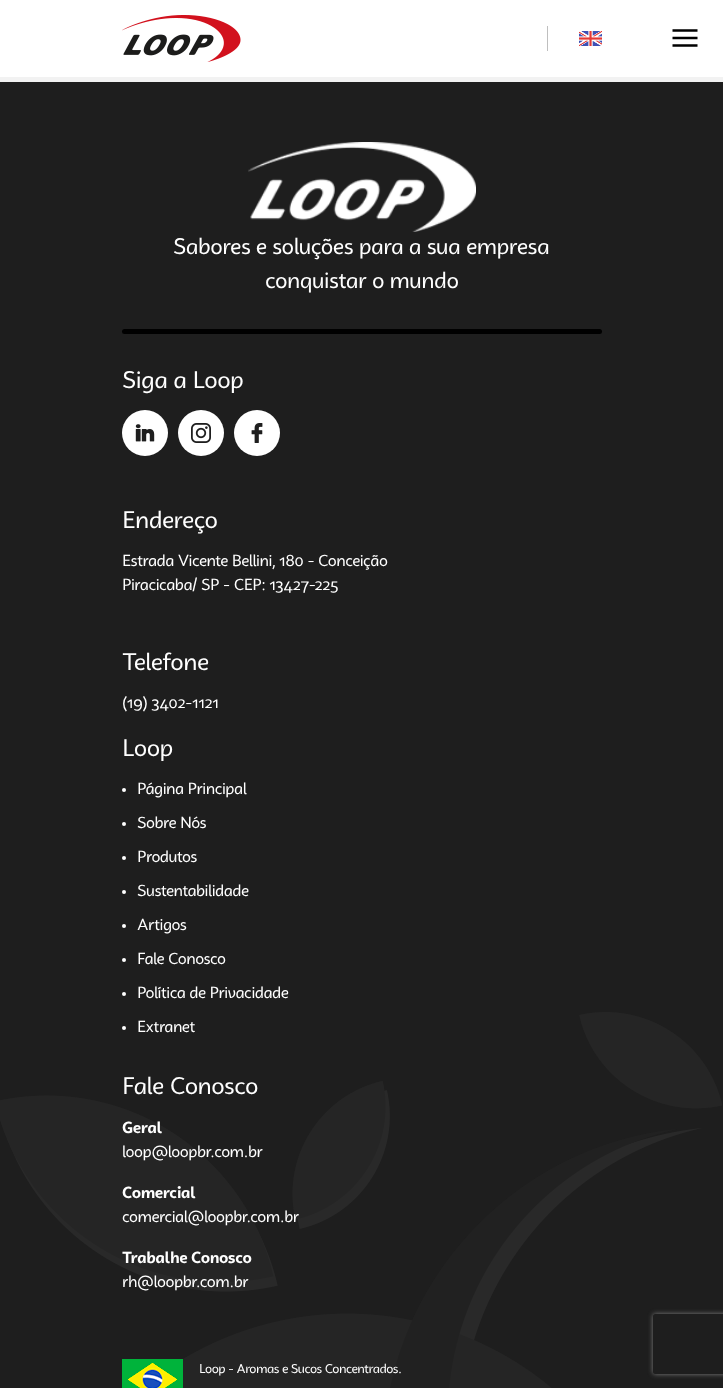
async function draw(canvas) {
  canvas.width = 723
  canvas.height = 1388
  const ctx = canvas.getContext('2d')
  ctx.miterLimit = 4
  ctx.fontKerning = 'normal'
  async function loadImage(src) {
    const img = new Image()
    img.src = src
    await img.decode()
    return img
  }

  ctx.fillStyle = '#f2f2f2'
  ctx.fillRect(0, 0, 723, 1388)
  ctx.fillStyle = '#fff'
  ctx.fillRect(0, 0, 723, 77)
  ctx.drawImage(await loadImage('image0.png'), 122, 15, 119, 47)
  ctx.fillStyle = '#bfbfbf'
  ctx.fillRect(547, 26, 1, 25)
  ctx.drawImage(await loadImage('image1.png'), 579, 31, 23, 15)
  ctx.drawImage(await loadImage('image2.png'), 672, 29, 26, 18)
  ctx.fillStyle = '#1e1e1e'
  ctx.fillRect(0, 82, 723, 1306)
  ctx.drawImage(await loadImage('image3.png'), 0, 1012, 722, 376)
  ctx.drawImage(await loadImage('image4.png'), 248, 142, 228, 90)
  ctx.letterSpacing = '-0.5px'
  ctx.font = '22.4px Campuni'
  ctx.fillStyle = '#fff'
  ctx.fillText('Sabores e soluções para a sua empresa', 173, 254)
  ctx.fillText('conquistar o mundo', 265, 288)
  ctx.fillStyle = '#000'
  ctx.beginPath()
  ctx.roundRect(122, 329, 480, 5, 2.5)
  ctx.fill()
  ctx.font = '24px Campuni'
  ctx.fillStyle = '#fff'
  ctx.fillText('Siga a Loop', 122, 388)
  ctx.beginPath()
  ctx.arc(145, 433, 23, 0, 2 * Math.PI)
  ctx.fill()
  ctx.drawImage(await loadImage('image5.png'), 135, 424, 20, 18)
  ctx.beginPath()
  ctx.arc(201, 433, 23, 0, 2 * Math.PI)
  ctx.fill()
  ctx.drawImage(await loadImage('image6.png'), 191, 423, 20, 20)
  ctx.beginPath()
  ctx.arc(257, 433, 23, 0, 2 * Math.PI)
  ctx.fill()
  ctx.drawImage(await loadImage('image7.png'), 251, 423, 12, 20)
  ctx.fillText('Endereço', 122, 528)
  ctx.font = '16px Campuni'
  ctx.fillText('Estrada Vicente Bellini, 180 - Conceição', 122, 566)
  ctx.fillText('Piracicaba/ SP - CEP: 13427-225', 122, 590)
  ctx.font = '24px Campuni'
  ctx.fillText('Telefone', 122, 670)
  ctx.font = '16px Campuni'
  ctx.fillText('(19) 3402-1121', 122, 708)
  ctx.font = '24px Campuni'
  ctx.fillText('Loop', 122, 756)
  ctx.beginPath()
  ctx.arc(124, 790, 2, 0, 2 * Math.PI)
  ctx.fill()
  ctx.font = '16px Campuni'
  ctx.fillText('Página Principal', 137, 794)
  ctx.beginPath()
  ctx.arc(124, 824, 2, 0, 2 * Math.PI)
  ctx.fill()
  ctx.fillText('Sobre Nós', 137, 828)
  ctx.beginPath()
  ctx.arc(124, 858, 2, 0, 2 * Math.PI)
  ctx.fill()
  ctx.fillText('Produtos', 137, 862)
  ctx.beginPath()
  ctx.arc(124, 892, 2, 0, 2 * Math.PI)
  ctx.fill()
  ctx.fillText('Sustentabilidade', 137, 896)
  ctx.beginPath()
  ctx.arc(124, 926, 2, 0, 2 * Math.PI)
  ctx.fill()
  ctx.fillText('Artigos', 137, 930)
  ctx.beginPath()
  ctx.arc(124, 960, 2, 0, 2 * Math.PI)
  ctx.fill()
  ctx.fillText('Fale Conosco', 137, 964)
  ctx.beginPath()
  ctx.arc(124, 994, 2, 0, 2 * Math.PI)
  ctx.fill()
  ctx.fillText('Política de Privacidade', 137, 998)
  ctx.beginPath()
  ctx.arc(124, 1028, 2, 0, 2 * Math.PI)
  ctx.fill()
  ctx.fillText('Extranet', 137, 1032)
  ctx.font = '24px Campuni'
  ctx.fillText('Fale Conosco', 122, 1094)
  ctx.font = 'bold 16px Campuni'
  ctx.fillText('Geral', 122, 1133)
  ctx.font = '16px Campuni'
  ctx.fillText('loop@loopbr.com.br', 122, 1157)
  ctx.font = 'bold 16px Campuni'
  ctx.fillText('Comercial', 122, 1198)
  ctx.font = '16px Campuni'
  ctx.fillText('comercial@loopbr.com.br', 122, 1222)
  ctx.font = 'bold 16px Campuni'
  ctx.fillText('Trabalhe Conosco', 122, 1263)
  ctx.font = '16px Campuni'
  ctx.fillText('rh@loopbr.com.br', 122, 1287)
  ctx.drawImage(await loadImage('image8.png'), 122, 1359, 61, 29)
  ctx.font = '12.75px Campuni'
  ctx.fillText('Loop - Aromas e Sucos Concentrados.', 199, 1373)
  ctx.save()
  ctx.beginPath()
  ctx.moveTo(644, 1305)
  ctx.lineTo(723, 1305)
  ctx.lineTo(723, 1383)
  ctx.lineTo(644, 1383)
  ctx.closePath()
  ctx.moveTo(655, 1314)
  ctx.lineTo(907, 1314)
  ctx.bezierCurveTo(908, 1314, 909, 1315, 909, 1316)
  ctx.lineTo(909, 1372)
  ctx.bezierCurveTo(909, 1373, 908, 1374, 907, 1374)
  ctx.lineTo(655, 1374)
  ctx.bezierCurveTo(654, 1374, 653, 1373, 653, 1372)
  ctx.lineTo(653, 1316)
  ctx.bezierCurveTo(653, 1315, 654, 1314, 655, 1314)
  ctx.closePath()
  ctx.clip('evenodd')
  ctx.fillStyle = '#808080'
  ctx.filter = 'blur(2.5px)'
  ctx.beginPath()
  ctx.roundRect(653, 1314, 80, 60, 2)
  ctx.fill()
  ctx.filter = 'none'
  ctx.restore()
}

draw(document.querySelector('canvas'))
